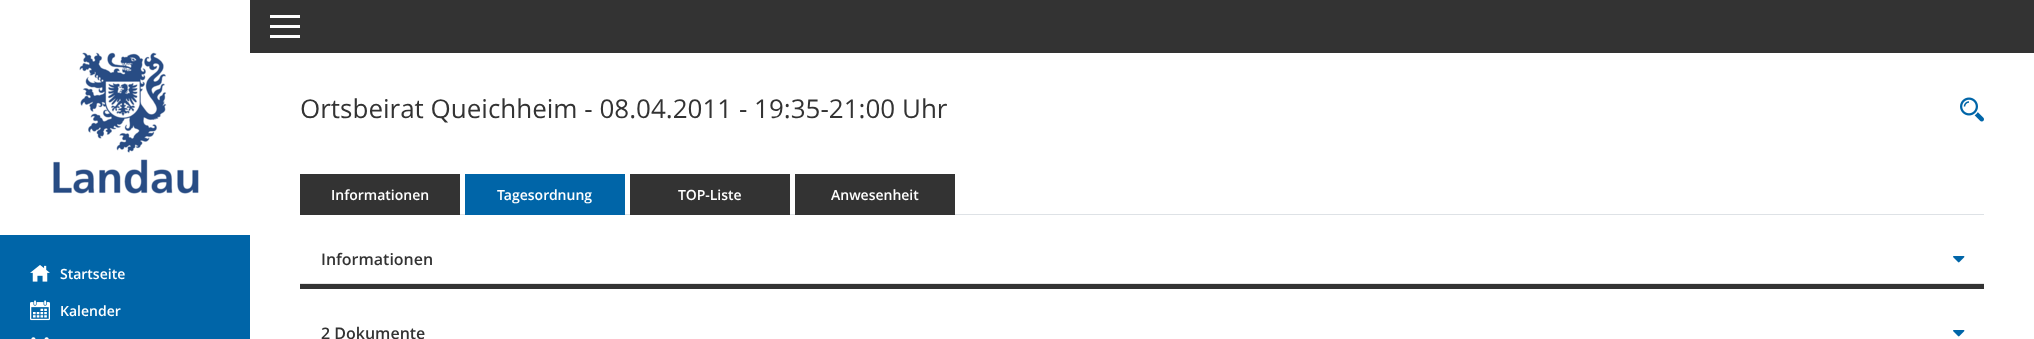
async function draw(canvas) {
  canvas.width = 2034
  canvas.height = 339
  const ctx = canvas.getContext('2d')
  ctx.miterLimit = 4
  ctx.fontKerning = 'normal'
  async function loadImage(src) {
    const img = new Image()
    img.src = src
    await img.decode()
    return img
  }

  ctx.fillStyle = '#fff'
  ctx.fillRect(0, 0, 2034, 339)
  ctx.fillStyle = '#0065a8'
  ctx.fillRect(0, 235, 250, 104)
  ctx.drawImage(await loadImage('image0.png'), 53, 52, 146, 142)
  ctx.drawImage(await loadImage('image1.png'), 30, 265, 20, 17)
  ctx.font = '600 14px Open Sans'
  ctx.fillStyle = '#fff'
  ctx.fillText('Startseite', 60, 279)
  ctx.drawImage(await loadImage('image2.png'), 30, 300, 20, 21)
  ctx.fillText('Kalender', 60, 316)
  ctx.drawImage(await loadImage('image3.png'), 31, 337, 18, 2)
  ctx.fillStyle = '#333'
  ctx.fillRect(250, 0, 1784, 53)
  ctx.fillStyle = '#fff'
  ctx.fillRect(270, 15, 30, 3)
  ctx.fillRect(270, 25, 30, 3)
  ctx.fillRect(270, 35, 30, 3)
  ctx.font = '26px Open Sans'
  ctx.fillStyle = '#333'
  ctx.fillText('Ortsbeirat Queichheim - 08.04.2011 - 19:35-21:00 Uhr', 300, 118)
  ctx.drawImage(await loadImage('image4.png'), 1960, 97, 24, 25)
  ctx.fillStyle = '#dee2e6'
  ctx.fillRect(460, 214, 1524, 1)
  ctx.fillStyle = '#333'
  ctx.fillRect(300, 174, 160, 41)
  ctx.font = '600 14px Open Sans'
  ctx.fillStyle = '#fff'
  ctx.fillText('Informationen', 331, 200)
  ctx.fillStyle = '#0065a8'
  ctx.fillRect(465, 174, 160, 41)
  ctx.fillStyle = '#fff'
  ctx.fillText('Tagesordnung', 497, 200)
  ctx.fillStyle = '#333'
  ctx.fillRect(630, 174, 160, 41)
  ctx.fillStyle = '#fff'
  ctx.fillText('TOP-Liste', 678, 200)
  ctx.fillStyle = '#333'
  ctx.fillRect(795, 174, 160, 41)
  ctx.fillStyle = '#fff'
  ctx.fillText('Anwesenheit', 831, 200)
  ctx.fillStyle = '#333'
  ctx.fillRect(300, 284, 1684, 5)
  ctx.fillStyle = '#e6e6e6'
  ctx.fillRect(300, 283, 1684, 1)
  ctx.font = '600 16px Open Sans'
  ctx.fillStyle = '#333'
  ctx.fillText('Informationen', 321, 265)
  ctx.drawImage(await loadImage('image5.png'), 1953, 256, 12, 7)
  ctx.fillText('2 Dokumente', 321, 339)
  ctx.drawImage(await loadImage('image5.png'), 1953, 330, 12, 7)
}

draw(document.querySelector('canvas'))
